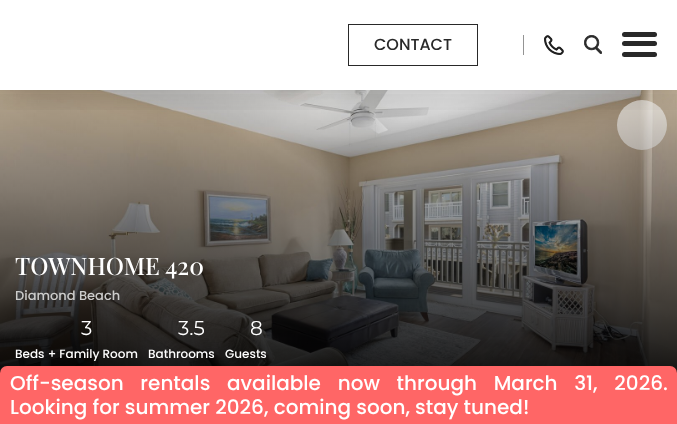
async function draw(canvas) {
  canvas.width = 677
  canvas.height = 424
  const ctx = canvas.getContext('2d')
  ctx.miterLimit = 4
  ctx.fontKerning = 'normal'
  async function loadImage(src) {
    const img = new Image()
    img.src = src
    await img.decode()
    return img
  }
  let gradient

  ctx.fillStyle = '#fff'
  ctx.fillRect(0, 0, 677, 424)
  ctx.drawImage(await loadImage('image2.png'), 0, 90, 677, 283)
  ctx.fillStyle = '#ffffff99'
  ctx.beginPath()
  ctx.arc(642, 125, 25, 0, 2 * Math.PI)
  ctx.fill()
  gradient = ctx.createLinearGradient(339, 87, 339, 387)
  gradient.addColorStop(0, '#00000000')
  gradient.addColorStop(1, '#000000e6')
  ctx.fillStyle = gradient
  ctx.fillRect(0, 94, 677, 279)
  ctx.save()
  ctx.beginPath()
  ctx.rect(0, 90, 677, 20)
  ctx.clip()
  ctx.fillStyle = '#00000029'
  ctx.filter = 'blur(15px)'
  ctx.beginPath()
  ctx.rect(0, 3, 677, 90)
  ctx.fill()
  ctx.filter = 'none'
  ctx.restore()
  ctx.strokeStyle = '#292929'
  ctx.strokeRect(348.5, 24.5, 129, 41)
  ctx.font = '500 16px Poppins'
  ctx.fillStyle = '#292929'
  ctx.fillText('CONTACT', 374, 50)
  ctx.fillStyle = '#949494'
  ctx.fillRect(523, 35, 1, 20)
  ctx.drawImage(await loadImage('image0.png'), 544, 35, 20, 20)
  ctx.drawImage(await loadImage('image1.png'), 584, 35, 18, 19)
  ctx.fillStyle = '#292929'
  ctx.beginPath()
  ctx.roundRect(622, 32, 35, 5, 2.5)
  ctx.fill()
  ctx.beginPath()
  ctx.roundRect(622, 41, 35, 5, 2.5)
  ctx.fill()
  ctx.beginPath()
  ctx.roundRect(622, 52, 35, 5, 2.5)
  ctx.fill()
  ctx.fillStyle = '#00000014'
  ctx.filter = 'blur(20px)'
  ctx.beginPath()
  ctx.roundRect(15, 377, 647, 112, 5)
  ctx.fill()
  ctx.filter = 'none'
  ctx.fillStyle = '#f66'
  ctx.beginPath()
  ctx.roundRect(0, 366, 677, 58, [7, 7, 0, 0])
  ctx.fill()
  ctx.wordSpacing = '11.5px'
  ctx.font = '500 20px Poppins'
  ctx.fillStyle = '#fff'
  ctx.fillText('Off-season rentals available now through March 31, 2026.', 10, 390)
  ctx.wordSpacing = '0px'
  ctx.fillText('Looking for summer 2026, coming soon, stay tuned!', 10, 414)
  ctx.font = '500 24px Playfair Display'
  ctx.fillText('TOWNHOME 420', 15, 275)
  ctx.font = '500 13px Poppins'
  ctx.fillStyle = '#cccccb'
  ctx.fillText('Diamond Beach', 15, 300)
  ctx.font = '20px Montserrat'
  ctx.fillStyle = '#fff'
  ctx.fillText('3', 81, 335)
  ctx.font = '500 12px Poppins'
  ctx.fillText('Beds + Family Room', 15, 358)
  ctx.font = '20px Montserrat'
  ctx.fillText('3.5', 178, 335)
  ctx.font = '500 12px Poppins'
  ctx.fillText('Bathrooms', 148, 358)
  ctx.font = '20px Montserrat'
  ctx.fillText('8', 250, 335)
  ctx.font = '500 12px Poppins'
  ctx.fillText('Guests', 225, 358)
}

draw(document.querySelector('canvas'))
